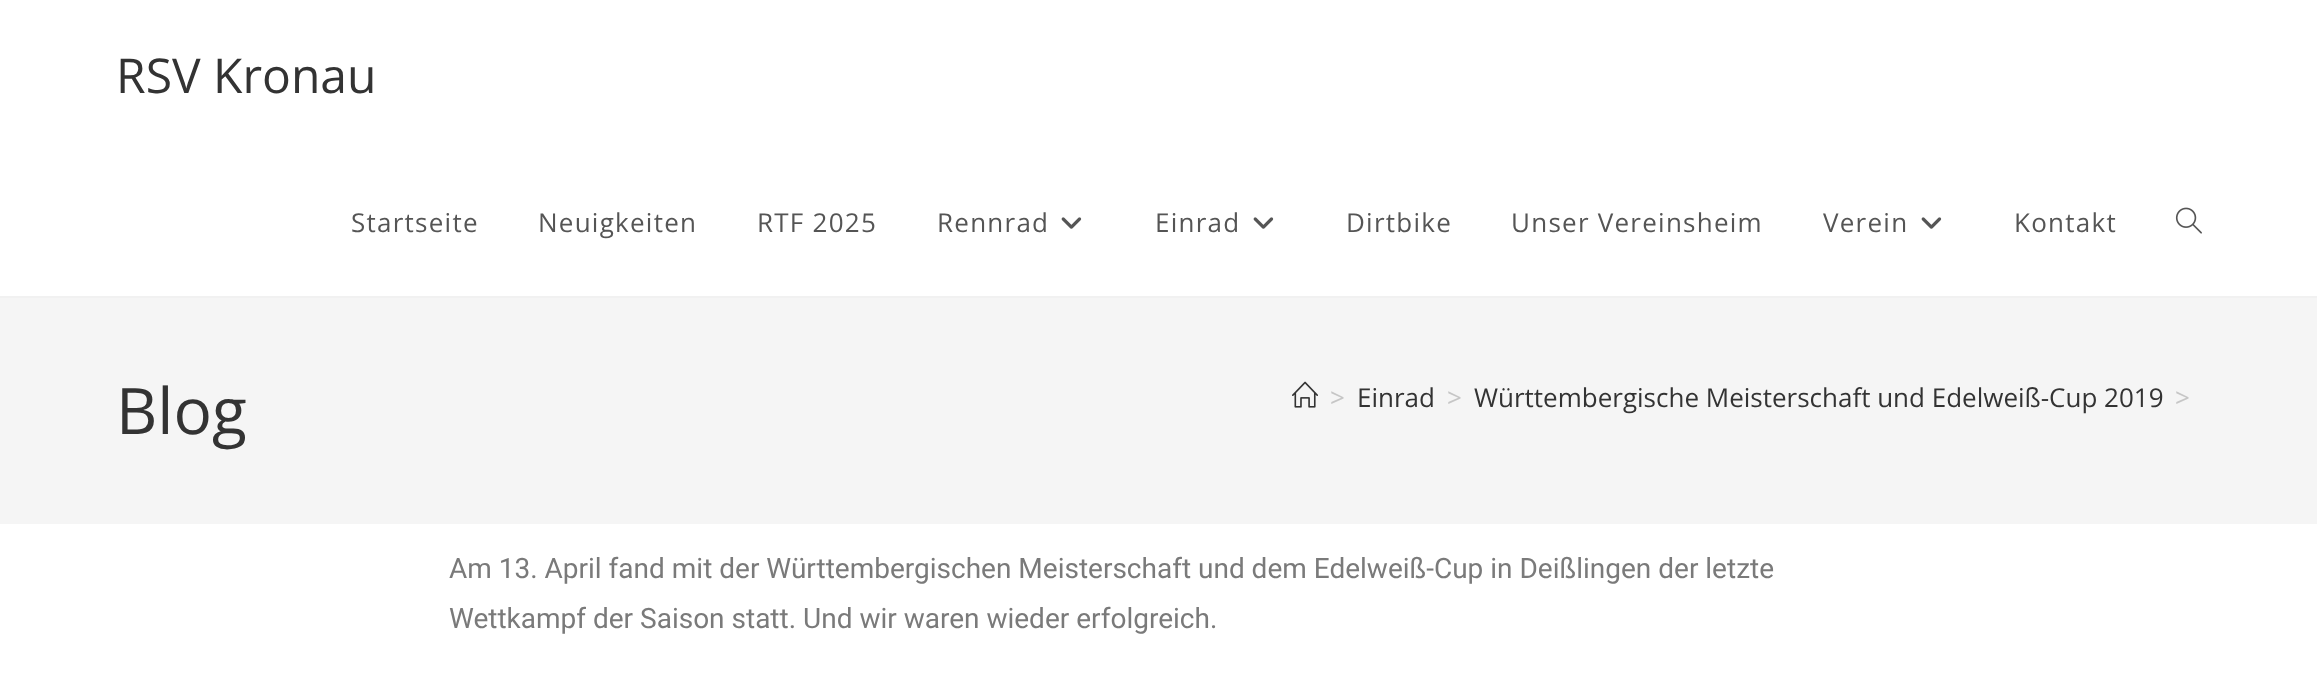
async function draw(canvas) {
  canvas.width = 2317
  canvas.height = 692
  const ctx = canvas.getContext('2d')
  ctx.miterLimit = 4
  ctx.fontKerning = 'normal'
  async function loadImage(src) {
    const img = new Image()
    img.src = src
    await img.decode()
    return img
  }

  ctx.fillStyle = '#fff'
  ctx.fillRect(0, 0, 2317, 692)
  ctx.fillStyle = '#f1f1f1'
  ctx.fillRect(0, 296, 2317, 2)
  ctx.font = '48px Open Sans'
  ctx.fillStyle = '#333'
  ctx.fillText('RSV Kronau', 116, 93)
  ctx.letterSpacing = '1.25px'
  ctx.font = '26px Open Sans'
  ctx.fillStyle = '#555'
  ctx.fillText('Startseite', 351, 232)
  ctx.fillText('Neuigkeiten', 538, 232)
  ctx.fillText('RTF 2025', 757, 232)
  ctx.fillText('Rennrad', 937, 232)
  ctx.drawImage(await loadImage('image0.png'), 1061, 217, 21, 12)
  ctx.fillText('Einrad', 1155, 232)
  ctx.drawImage(await loadImage('image0.png'), 1253, 217, 21, 12)
  ctx.fillText('Dirtbike', 1346, 232)
  ctx.fillText('Unser Vereinsheim', 1511, 232)
  ctx.fillText('Verein', 1823, 232)
  ctx.drawImage(await loadImage('image0.png'), 1921, 217, 21, 12)
  ctx.fillText('Kontakt', 2014, 232)
  ctx.drawImage(await loadImage('image1.png'), 2175, 207, 27, 27)
  ctx.fillStyle = '#f5f5f5'
  ctx.fillRect(0, 298, 2317, 226)
  ctx.letterSpacing = '0px'
  ctx.font = '64px Open Sans'
  ctx.fillStyle = '#333'
  ctx.fillText('Blog', 116, 434)
  ctx.drawImage(await loadImage('image2.png'), 1292, 381, 26, 27)
  ctx.font = '26px Open Sans'
  ctx.fillStyle = '#c6c6c6'
  ctx.fillText('>', 1330, 407)
  ctx.fillStyle = '#333'
  ctx.fillText('Einrad', 1357, 407)
  ctx.fillStyle = '#c6c6c6'
  ctx.fillText('>', 1447, 407)
  ctx.fillStyle = '#333'
  ctx.fillText('Württembergische Meisterschaft und Edelweiß-Cup 2019', 1474, 407)
  ctx.fillStyle = '#c6c6c6'
  ctx.fillText('>', 2175, 407)
  ctx.font = '28px Roboto'
  ctx.fillStyle = '#7a7a7a'
  ctx.fillText('Am 13. April fand mit der Württembergischen Meisterschaft und dem Edelweiß-Cup in Deißlingen der letzte', 449, 578)
  ctx.fillText('Wettkampf der Saison statt. Und wir waren wieder erfolgreich.', 449, 628)
}

draw(document.querySelector('canvas'))
